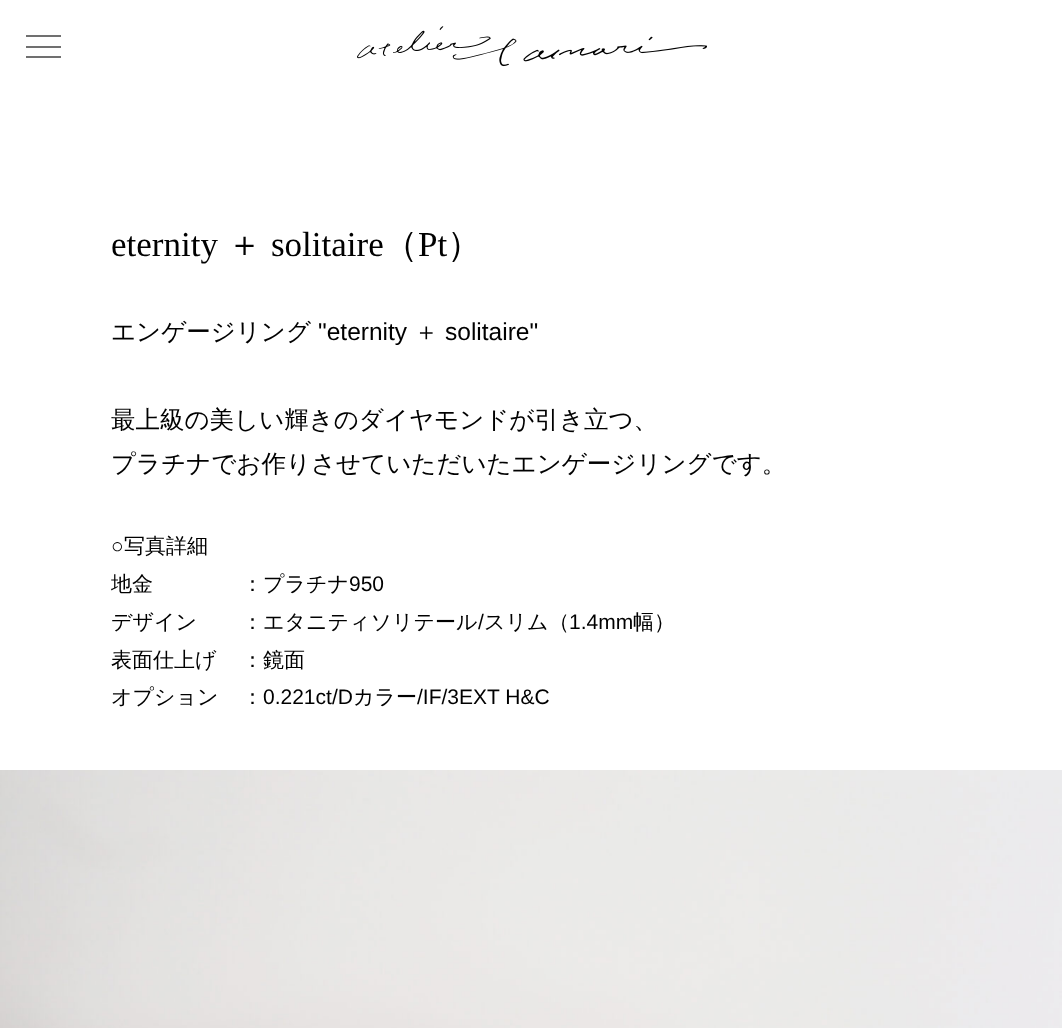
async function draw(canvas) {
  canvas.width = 1062
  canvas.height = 1028
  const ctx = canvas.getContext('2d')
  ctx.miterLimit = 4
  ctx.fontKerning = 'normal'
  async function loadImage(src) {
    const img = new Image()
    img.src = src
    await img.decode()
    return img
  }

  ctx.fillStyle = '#fff'
  ctx.fillRect(0, 0, 1062, 1028)
  ctx.fillStyle = '#707070'
  ctx.fillRect(26, 35, 35, 2)
  ctx.fillRect(26, 46, 35, 2)
  ctx.fillRect(26, 56, 35, 2)
  ctx.drawImage(await loadImage('image0.png'), 357, 26, 350, 41)
  ctx.font = '35px Liberation Serif'
  ctx.fillStyle = '#000'
  ctx.fillText('eternity', 111, 256)
  ctx.font = '500 35px WenQuanYi Zen Hei'
  ctx.fillText('＋', 227, 256)
  ctx.font = '35px Liberation Serif'
  ctx.fillText('solitaire', 271, 256)
  ctx.font = '500 35px WenQuanYi Zen Hei'
  ctx.fillText('（', 383, 256)
  ctx.font = '35px Liberation Serif'
  ctx.fillText('Pt', 418, 256)
  ctx.font = '500 35px WenQuanYi Zen Hei'
  ctx.fillText('）', 447, 256)
  ctx.font = '500 24.5px WenQuanYi Zen Hei'
  ctx.fillText('エンゲージリング', 111, 340)
  ctx.font = '24.5px Liberation Sans'
  ctx.fillText('"eternity', 318, 340)
  ctx.font = '500 24.5px WenQuanYi Zen Hei'
  ctx.fillText('＋', 414, 340)
  ctx.font = '24.5px Liberation Sans'
  ctx.fillText('solitaire"', 445, 340)
  ctx.font = '500 24.5px WenQuanYi Zen Hei'
  ctx.fillText('最上級の美しい輝きのダイヤモンドが引き立つ、', 111, 428)
  ctx.fillText('プラチナでお作りさせていただいたエンゲージリングです。', 111, 472)
  ctx.font = '21px Liberation Sans'
  ctx.fillText('○', 111, 553)
  ctx.font = '500 21px WenQuanYi Zen Hei'
  ctx.fillText('写真詳細', 124, 553)
  ctx.fillText('地金', 111, 591)
  ctx.fillText('：プラチナ', 242, 591)
  ctx.font = '21px Liberation Sans'
  ctx.fillText('950', 349, 591)
  ctx.font = '500 21px WenQuanYi Zen Hei'
  ctx.fillText('デザイン', 111, 629)
  ctx.fillText('：エタニティソリテール', 242, 629)
  ctx.font = '21px Liberation Sans'
  ctx.fillText('/', 478, 629)
  ctx.font = '500 21px WenQuanYi Zen Hei'
  ctx.fillText('スリム（', 484, 629)
  ctx.font = '21px Liberation Sans'
  ctx.fillText('1.4mm', 569, 629)
  ctx.font = '500 21px WenQuanYi Zen Hei'
  ctx.fillText('幅）', 633, 629)
  ctx.fillText('表面仕上げ', 111, 667)
  ctx.fillText('：鏡面', 242, 667)
  ctx.fillText('オプション', 111, 704)
  ctx.fillText('：', 242, 704)
  ctx.font = '21px Liberation Sans'
  ctx.fillText('0.221ct/D', 263, 704)
  ctx.font = '500 21px WenQuanYi Zen Hei'
  ctx.fillText('カラー', 353, 704)
  ctx.font = '21px Liberation Sans'
  ctx.fillText('/IF/3EXT H&C', 417, 704)
  ctx.drawImage(await loadImage('image1.png'), 0, 770, 1062, 258)
}

draw(document.querySelector('canvas'))
